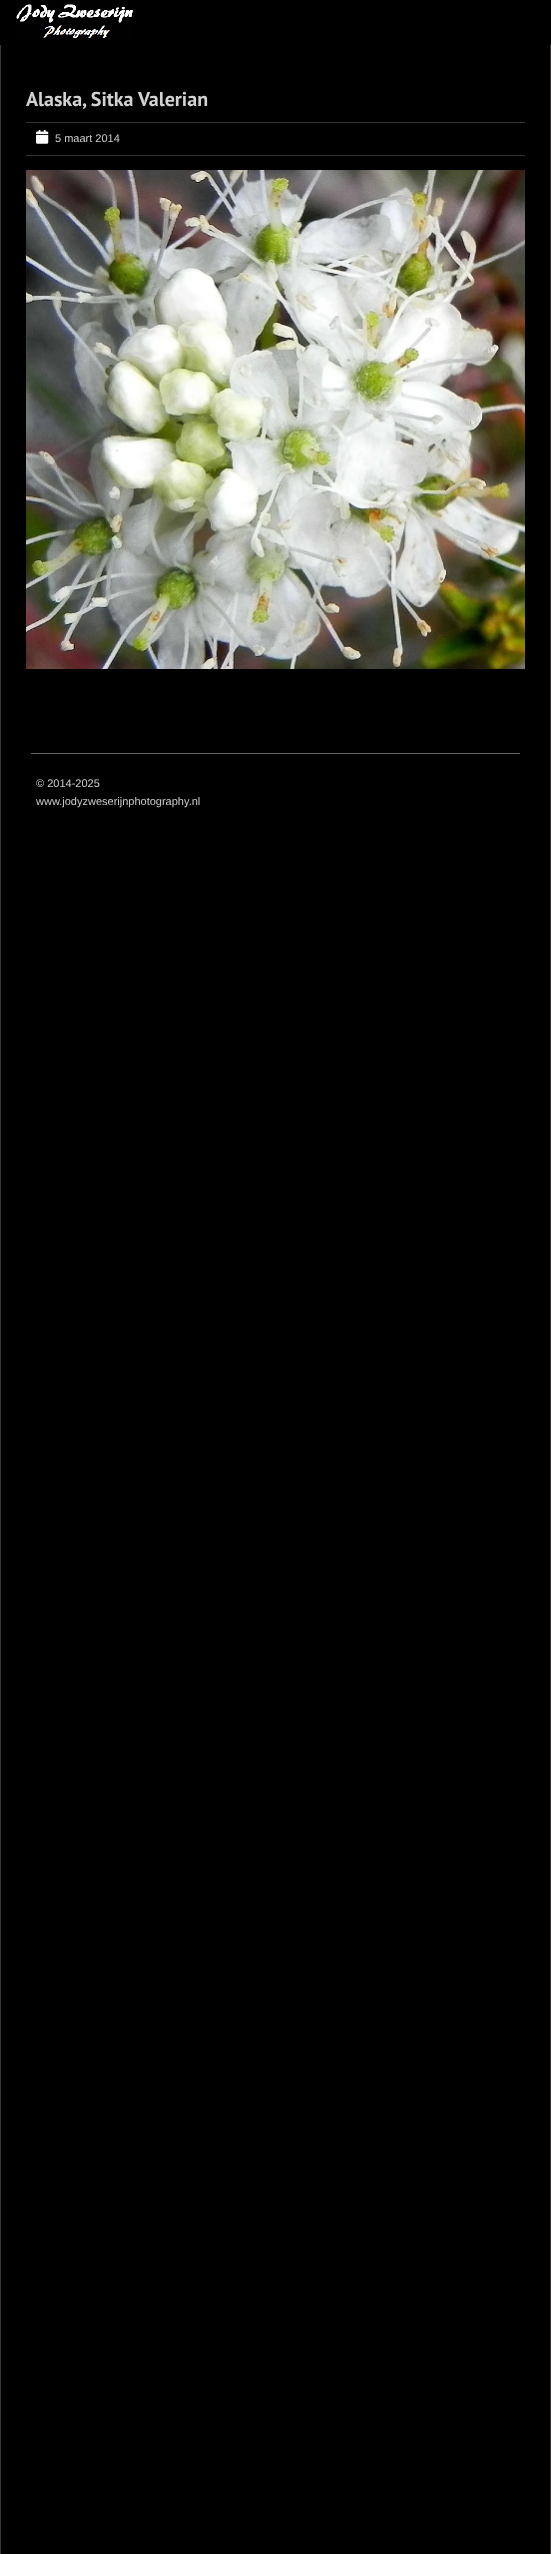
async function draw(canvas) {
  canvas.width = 551
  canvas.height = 2554
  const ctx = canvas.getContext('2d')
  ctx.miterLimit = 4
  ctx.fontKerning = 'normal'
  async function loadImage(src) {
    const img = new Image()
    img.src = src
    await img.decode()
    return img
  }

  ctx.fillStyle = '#000'
  ctx.fillRect(0, 0, 551, 2554)
  ctx.drawImage(await loadImage('image0.png'), 16, 4, 117, 35)
  ctx.fillStyle = '#393836'
  ctx.fillRect(550, 45, 1, 2509)
  ctx.fillRect(0, 45, 1, 2509)
  ctx.font = 'bold 20px PT Sans'
  ctx.fillStyle = '#d2d2d2'
  ctx.fillText('Alaska, Sitka Valerian', 26, 106)
  ctx.fillStyle = '#343434'
  ctx.fillRect(26, 122, 499, 1)
  ctx.fillRect(26, 155, 499, 1)
  ctx.drawImage(await loadImage('image1.png'), 36, 130, 13, 14)
  ctx.font = '11px Liberation Sans'
  ctx.fillStyle = '#ccc'
  ctx.fillText('5 maart 2014', 55, 142)
  ctx.drawImage(await loadImage('image2.png'), 26, 170, 499, 499)
  ctx.fillStyle = '#646464'
  ctx.fillRect(31, 753, 489, 1)
  ctx.fillStyle = '#ccc'
  ctx.fillText('© 2014-2025', 36, 787)
  ctx.fillText('www.jodyzweserijnphotography.nl', 36, 805)
}

draw(document.querySelector('canvas'))
